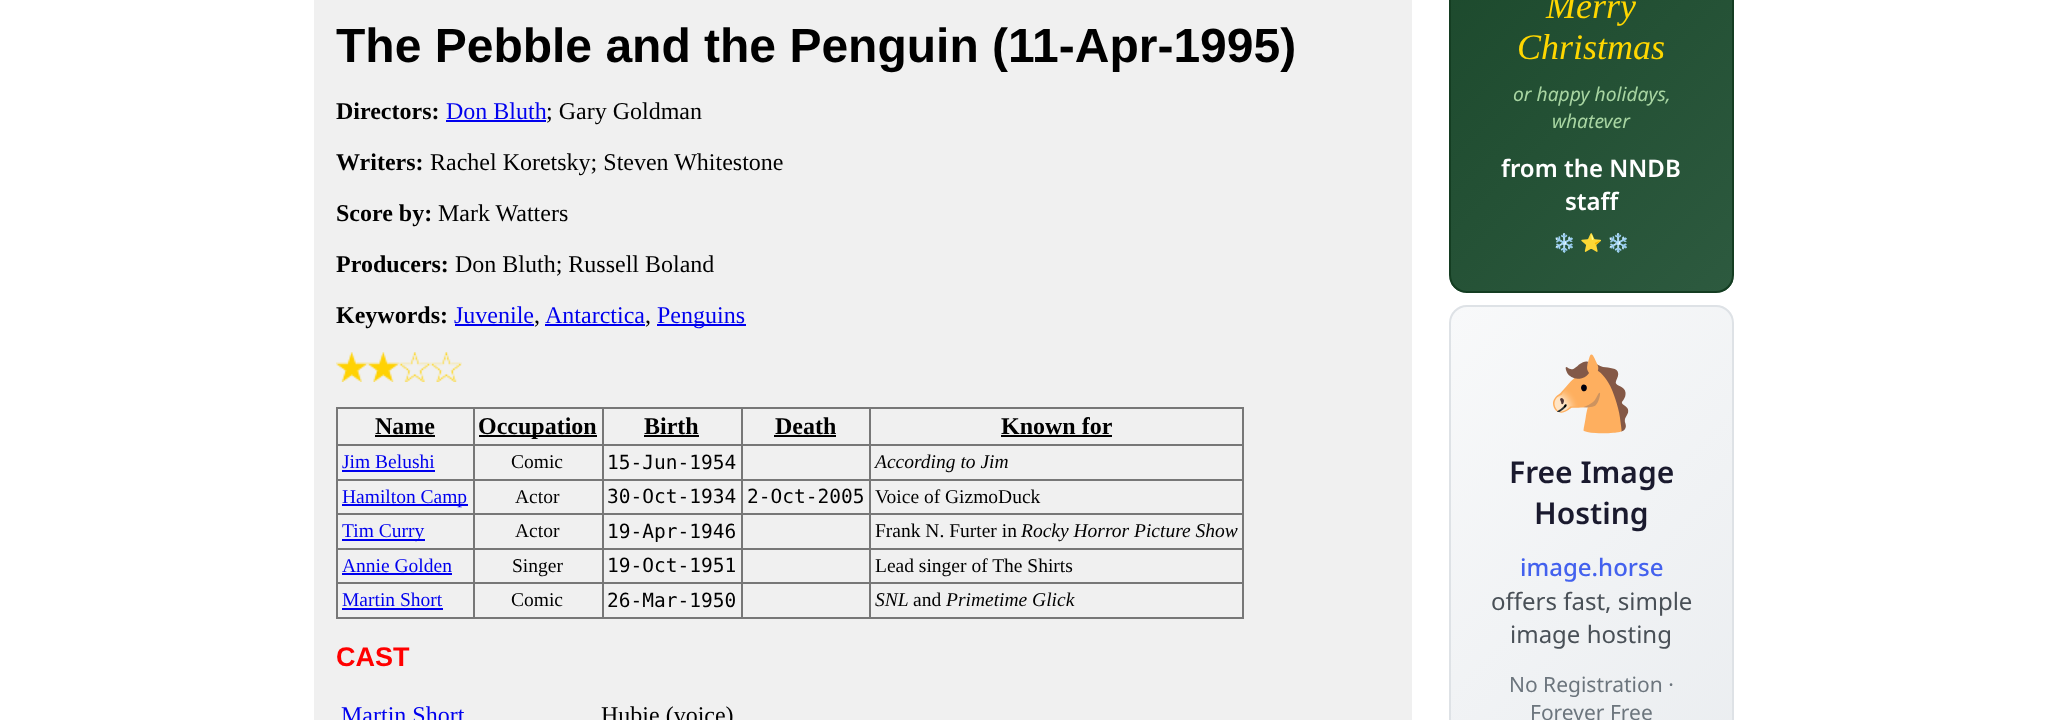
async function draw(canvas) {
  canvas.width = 2047
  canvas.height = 720
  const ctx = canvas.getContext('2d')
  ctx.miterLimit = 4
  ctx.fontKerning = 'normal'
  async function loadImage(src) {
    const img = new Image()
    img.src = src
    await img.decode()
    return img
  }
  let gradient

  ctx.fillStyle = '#fff'
  ctx.fillRect(0, 0, 2047, 720)
  ctx.fillStyle = '#f0f0f0'
  ctx.fillRect(314, 0, 1098, 720)
  ctx.font = 'bold 48px Liberation Sans'
  ctx.fillStyle = '#000'
  ctx.fillText('The Pebble and the Penguin (11-Apr-1995)', 336, 62)
  ctx.font = 'bold 24px Liberation Serif'
  ctx.fillText('Directors:', 336, 119)
  ctx.font = '24px Liberation Serif'
  ctx.fillStyle = '#00e'
  ctx.fillText('Don Bluth', 446, 119)
  ctx.fillRect(446, 120, 100, 2)
  ctx.fillStyle = '#000'
  ctx.fillText('; Gary Goldman', 546, 119)
  ctx.font = 'bold 24px Liberation Serif'
  ctx.fillText('Writers:', 336, 170)
  ctx.font = '24px Liberation Serif'
  ctx.fillText('Rachel Koretsky; Steven Whitestone', 430, 170)
  ctx.font = 'bold 24px Liberation Serif'
  ctx.fillText('Score by:', 336, 221)
  ctx.font = '24px Liberation Serif'
  ctx.fillText('Mark Watters', 438, 221)
  ctx.font = 'bold 24px Liberation Serif'
  ctx.fillText('Producers:', 336, 272)
  ctx.font = '24px Liberation Serif'
  ctx.fillText('Don Bluth; Russell Boland', 455, 272)
  ctx.font = 'bold 24px Liberation Serif'
  ctx.fillText('Keywords:', 336, 323)
  ctx.font = '24px Liberation Serif'
  ctx.fillStyle = '#00e'
  ctx.fillText('Juvenile', 454, 323)
  ctx.fillRect(455, 324, 79, 2)
  ctx.fillStyle = '#000'
  ctx.fillText(',', 534, 323)
  ctx.fillStyle = '#00e'
  ctx.fillText('Antarctica', 545, 323)
  ctx.fillRect(545, 324, 100, 2)
  ctx.fillStyle = '#000'
  ctx.fillText(',', 645, 323)
  ctx.fillStyle = '#00e'
  ctx.fillRect(657, 324, 89, 2)
  ctx.fillText('Penguins', 657, 323)
  ctx.drawImage(await loadImage('image0.png'), 336, 352, 32, 30)
  ctx.drawImage(await loadImage('image1.png'), 367, 352, 32, 30)
  ctx.drawImage(await loadImage('image2.png'), 399, 352, 32, 30)
  ctx.drawImage(await loadImage('image3.png'), 430, 352, 32, 30)
  ctx.fillStyle = '#777'
  ctx.fillRect(336, 407, 908, 2)
  ctx.fillRect(1242, 407, 2, 211)
  ctx.fillRect(336, 617, 908, 2)
  ctx.fillRect(336, 407, 2, 211)
  ctx.font = 'bold 24px Liberation Serif'
  ctx.fillStyle = '#000'
  ctx.fillText('Name', 375, 434)
  ctx.fillRect(375, 435, 60, 2)
  ctx.fillStyle = '#777'
  ctx.fillRect(869, 444, 375, 2)
  ctx.fillRect(869, 479, 375, 2)
  ctx.fillRect(869, 513, 375, 2)
  ctx.fillRect(869, 548, 375, 2)
  ctx.fillRect(869, 582, 375, 2)
  ctx.fillRect(869, 582, 2, 36)
  ctx.fillRect(741, 582, 129, 2)
  ctx.fillRect(869, 548, 2, 36)
  ctx.fillRect(741, 548, 129, 2)
  ctx.fillRect(869, 513, 2, 36)
  ctx.fillRect(741, 513, 129, 2)
  ctx.fillRect(869, 479, 2, 36)
  ctx.fillRect(741, 479, 129, 2)
  ctx.fillRect(869, 444, 2, 36)
  ctx.fillRect(741, 444, 129, 2)
  ctx.fillRect(741, 582, 2, 36)
  ctx.fillRect(602, 582, 141, 2)
  ctx.fillRect(741, 548, 2, 36)
  ctx.fillRect(602, 548, 141, 2)
  ctx.fillRect(741, 513, 2, 36)
  ctx.fillRect(602, 513, 141, 2)
  ctx.fillRect(741, 479, 2, 36)
  ctx.fillRect(602, 479, 141, 2)
  ctx.fillRect(741, 444, 2, 36)
  ctx.fillRect(602, 444, 141, 2)
  ctx.fillRect(602, 582, 2, 36)
  ctx.fillRect(473, 582, 130, 2)
  ctx.fillRect(602, 548, 2, 36)
  ctx.fillRect(473, 548, 130, 2)
  ctx.fillRect(602, 513, 2, 36)
  ctx.fillRect(473, 513, 130, 2)
  ctx.fillRect(602, 479, 2, 36)
  ctx.fillRect(473, 479, 130, 2)
  ctx.fillRect(602, 444, 2, 36)
  ctx.fillRect(473, 444, 130, 2)
  ctx.fillRect(473, 582, 2, 36)
  ctx.fillRect(336, 582, 138, 2)
  ctx.fillRect(473, 548, 2, 36)
  ctx.fillRect(336, 548, 138, 2)
  ctx.fillRect(473, 513, 2, 36)
  ctx.fillRect(336, 513, 138, 2)
  ctx.fillRect(473, 479, 2, 36)
  ctx.fillRect(336, 479, 138, 2)
  ctx.fillRect(473, 444, 2, 36)
  ctx.fillRect(336, 444, 138, 2)
  ctx.fillRect(473, 407, 2, 39)
  ctx.fillStyle = '#000'
  ctx.fillRect(479, 435, 118, 2)
  ctx.fillText('Occupation', 478, 434)
  ctx.fillStyle = '#777'
  ctx.fillRect(602, 407, 2, 39)
  ctx.fillStyle = '#000'
  ctx.fillText('Birth', 644, 434)
  ctx.fillRect(644, 435, 55, 2)
  ctx.fillStyle = '#777'
  ctx.fillRect(741, 407, 2, 39)
  ctx.fillStyle = '#000'
  ctx.fillText('Death', 775, 434)
  ctx.fillRect(774, 435, 62, 2)
  ctx.fillStyle = '#777'
  ctx.fillRect(869, 407, 2, 39)
  ctx.fillStyle = '#000'
  ctx.fillText('Known for', 1001, 434)
  ctx.fillRect(1001, 435, 111, 2)
  ctx.font = '19.5px Liberation Serif'
  ctx.fillStyle = '#00e'
  ctx.fillText('Jim Belushi', 342, 468)
  ctx.fillRect(342, 470, 93, 2)
  ctx.fillStyle = '#000'
  ctx.fillText('Comic', 511, 468)
  ctx.font = '19.5px DejaVu Sans Mono'
  ctx.fillText('15-Jun-1954', 607, 469)
  ctx.font = 'italic 19.5px Liberation Serif'
  ctx.fillText('According to Jim', 875, 468)
  ctx.fillStyle = '#00e'
  ctx.fillRect(342, 504, 126, 2)
  ctx.font = '19.5px Liberation Serif'
  ctx.fillText('Hamilton Camp', 342, 503)
  ctx.fillStyle = '#000'
  ctx.fillText('Actor', 515, 503)
  ctx.font = '19.5px DejaVu Sans Mono'
  ctx.fillText('30-Oct-1934', 607, 503)
  ctx.fillText('2-Oct-2005', 747, 503)
  ctx.font = '19.5px Liberation Serif'
  ctx.fillText('Voice of GizmoDuck', 875, 503)
  ctx.fillStyle = '#00e'
  ctx.fillRect(342, 539, 83, 2)
  ctx.fillText('Tim Curry', 342, 537)
  ctx.fillStyle = '#000'
  ctx.fillText('Actor', 515, 537)
  ctx.font = '19.5px DejaVu Sans Mono'
  ctx.fillText('19-Apr-1946', 607, 538)
  ctx.font = '19.5px Liberation Serif'
  ctx.fillText('Frank N. Furter in', 875, 537)
  ctx.font = 'italic 19.5px Liberation Serif'
  ctx.fillText('Rocky Horror Picture Show', 1021, 537)
  ctx.font = '19.5px Liberation Serif'
  ctx.fillStyle = '#00e'
  ctx.fillText('Annie Golden', 342, 572)
  ctx.fillRect(342, 573, 110, 2)
  ctx.fillStyle = '#000'
  ctx.fillText('Singer', 512, 572)
  ctx.font = '19.5px DejaVu Sans Mono'
  ctx.fillText('19-Oct-1951', 607, 572)
  ctx.font = '19.5px Liberation Serif'
  ctx.fillText('Lead singer of The Shirts', 875, 572)
  ctx.fillStyle = '#00e'
  ctx.fillText('Martin Short', 342, 606)
  ctx.fillRect(342, 608, 101, 2)
  ctx.fillStyle = '#000'
  ctx.fillText('Comic', 511, 606)
  ctx.font = '19.5px DejaVu Sans Mono'
  ctx.fillText('26-Mar-1950', 607, 607)
  ctx.font = 'italic 19.5px Liberation Serif'
  ctx.fillText('SNL', 875, 606)
  ctx.font = '19.5px Liberation Serif'
  ctx.fillText('and', 913, 606)
  ctx.font = 'italic 19.5px Liberation Serif'
  ctx.fillText('Primetime Glick', 946, 606)
  ctx.font = 'bold 27px Liberation Sans'
  ctx.fillStyle = '#f00'
  ctx.fillText('CAST', 336, 666)
  ctx.font = '24px Liberation Serif'
  ctx.fillStyle = '#00e'
  ctx.fillText('Martin Short', 341, 723)
  ctx.fillStyle = '#000'
  ctx.fillText('Hubie (voice)', 601, 723)
  ctx.save()
  ctx.beginPath()
  ctx.roundRect(1449, -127, 285, 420, 18)
  ctx.clip()
  gradient = ctx.createLinearGradient(1417, -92, 1766, 257)
  gradient.addColorStop(0, '#1a472a')
  gradient.addColorStop(1, '#2d5a3f')
  ctx.fillStyle = gradient
  ctx.fillRect(1451, 0, 282, 291)
  ctx.restore()
  ctx.beginPath()
  ctx.roundRect(1450, -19, 283, 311, 17)
  ctx.strokeStyle = '#143d22'
  ctx.lineWidth = 2
  ctx.stroke()
  ctx.font = 'italic 36px Liberation Serif'
  ctx.fillStyle = '#ffd700'
  ctx.fillText('Merry', 1546, 18)
  ctx.fillText('Christmas', 1517, 59)
  ctx.font = 'italic 19.25px Noto Sans'
  ctx.fillStyle = '#a8d5a2'
  ctx.fillText('or happy holidays,', 1513, 101)
  ctx.fillText('whatever', 1552, 128)
  ctx.font = '600 24px Noto Sans'
  ctx.fillStyle = '#fff'
  ctx.fillText('from the NNDB', 1501, 177)
  ctx.fillText('staff', 1565, 210)
  ctx.font = '18px Noto Color Emoji'
  ctx.fillText('❄️', 1553, 249)
  ctx.fillText('⭐', 1580, 249)
  ctx.fillText('❄️', 1607, 249)
  ctx.save()
  ctx.beginPath()
  ctx.roundRect(1449, 305, 285, 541, 18)
  ctx.clip()
  gradient = ctx.createLinearGradient(1386, 370, 1797, 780)
  gradient.addColorStop(0, '#f8f9fa')
  gradient.addColorStop(1, '#e9ecef')
  ctx.fillStyle = gradient
  ctx.fillRect(1451, 306, 282, 414)
  ctx.restore()
  ctx.beginPath()
  ctx.roundRect(1450, 306, 283, 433, 17)
  ctx.strokeStyle = '#dee2e6'
  ctx.stroke()
  ctx.font = '72px Noto Color Emoji'
  ctx.fillStyle = '#00e'
  ctx.fillText('🐴', 1546, 419)
  ctx.font = '600 30px Noto Sans'
  ctx.fillStyle = '#1a1a2e'
  ctx.fillText('Free Image', 1509, 483)
  ctx.fillText('Hosting', 1534, 524)
  ctx.font = '500 24px Noto Sans'
  ctx.fillStyle = '#4361ee'
  ctx.fillText('image.horse', 1520, 576)
  ctx.font = '24px Noto Sans'
  ctx.fillStyle = '#495057'
  ctx.fillText('offers fast, simple', 1491, 610)
  ctx.fillText('image hosting', 1510, 643)
  ctx.font = '21px Noto Sans'
  ctx.fillStyle = '#6c757d'
  ctx.fillText('No Registration ·', 1509, 692)
  ctx.fillText('Forever Free', 1530, 720)
}

draw(document.querySelector('canvas'))
